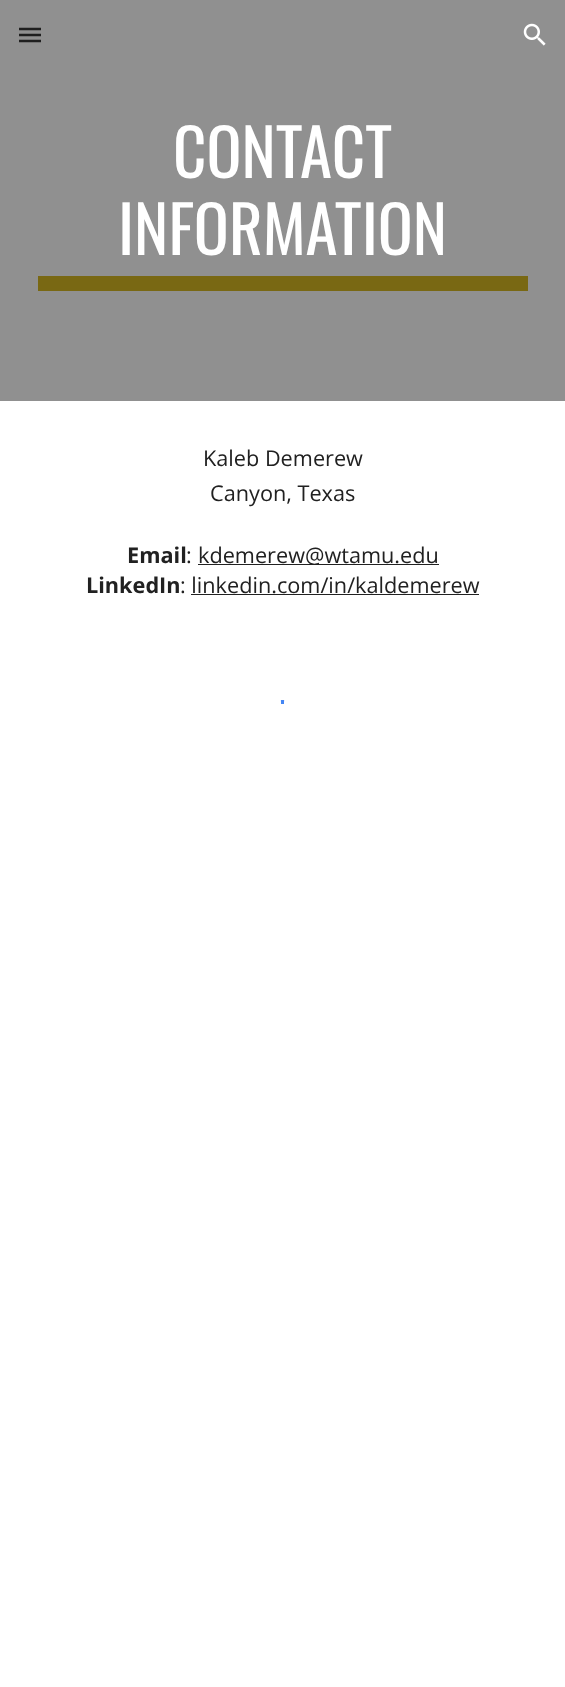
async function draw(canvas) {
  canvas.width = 565
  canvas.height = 1687
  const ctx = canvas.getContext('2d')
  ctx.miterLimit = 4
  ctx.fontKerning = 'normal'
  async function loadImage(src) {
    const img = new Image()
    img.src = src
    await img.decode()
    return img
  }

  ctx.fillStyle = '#fff'
  ctx.fillRect(0, 0, 565, 1687)
  ctx.fillStyle = '#909090'
  ctx.fillRect(0, 0, 565, 401)
  ctx.beginPath()
  ctx.moveTo(19, 29)
  ctx.lineTo(41, 29)
  ctx.moveTo(19, 35)
  ctx.lineTo(41, 35)
  ctx.moveTo(19, 41)
  ctx.lineTo(41, 41)
  ctx.strokeStyle = '#1f1f1f'
  ctx.lineWidth = 2.5
  ctx.stroke()
  ctx.drawImage(await loadImage('image0.png'), 523, 23, 23, 23)
  ctx.font = '65px Oswald'
  ctx.fillStyle = '#fff'
  ctx.fillText('CONTACT', 173, 178)
  ctx.fillText('INFORMATION', 118, 255)
  ctx.fillStyle = '#796813'
  ctx.fillRect(38, 276, 490, 15)
  ctx.font = '21.7px Open Sans'
  ctx.fillStyle = '#212121'
  ctx.fillText('Kaleb Demerew', 203, 466)
  ctx.fillText('Canyon, Texas', 210, 501)
  ctx.font = 'bold 21.7px Open Sans'
  ctx.fillText('Email', 127, 563)
  ctx.font = '21.7px Open Sans'
  ctx.fillText(':', 186, 563)
  ctx.fillRect(198, 564, 241, 1)
  ctx.fillText('kdemerew@wtamu.edu', 198, 563)
  ctx.font = 'bold 21.7px Open Sans'
  ctx.fillText('LinkedIn', 86, 593)
  ctx.font = '21.7px Open Sans'
  ctx.fillText(': linkedin.com/in/kaldemerew', 180, 593)
  ctx.fillRect(191, 594, 288, 1)
  ctx.save()
  ctx.beginPath()
  ctx.rect(265, 700, 18, 35)
  ctx.clip()
  ctx.beginPath()
  ctx.moveTo(281, 702)
  ctx.bezierCurveTo(296.5, 700.5, 304, 720, 292.5, 729.5)
  ctx.bezierCurveTo(290, 731.5, 287, 732.5, 284, 733)
  ctx.strokeStyle = '#4486f4'
  ctx.lineWidth = 3.7
  ctx.stroke()
  ctx.restore()
  ctx.save()
  ctx.beginPath()
  ctx.rect(281, 700, 3, 35)
  ctx.clip()
  ctx.beginPath()
  ctx.moveTo(271.5, 728.5)
  ctx.bezierCurveTo(268, 725, 266, 719.5, 267, 714.5)
  ctx.bezierCurveTo(271, 696, 298, 699, 298, 717.5)
  ctx.bezierCurveTo(298, 721.5, 296.5, 725.5, 293.5, 728.5)
  ctx.strokeStyle = '#4486f4'
  ctx.lineWidth = 3.8
  ctx.stroke()
  ctx.restore()
  ctx.save()
  ctx.beginPath()
  ctx.rect(283, 700, 17, 35)
  ctx.clip()
  ctx.beginPath()
  ctx.moveTo(281, 733)
  ctx.bezierCurveTo(278, 732.5, 275, 731.5, 272.5, 729.5)
  ctx.bezierCurveTo(261, 720, 268.5, 700.5, 284, 702)
  ctx.strokeStyle = '#4486f4'
  ctx.lineWidth = 3.7
  ctx.stroke()
  ctx.restore()
}

draw(document.querySelector('canvas'))
